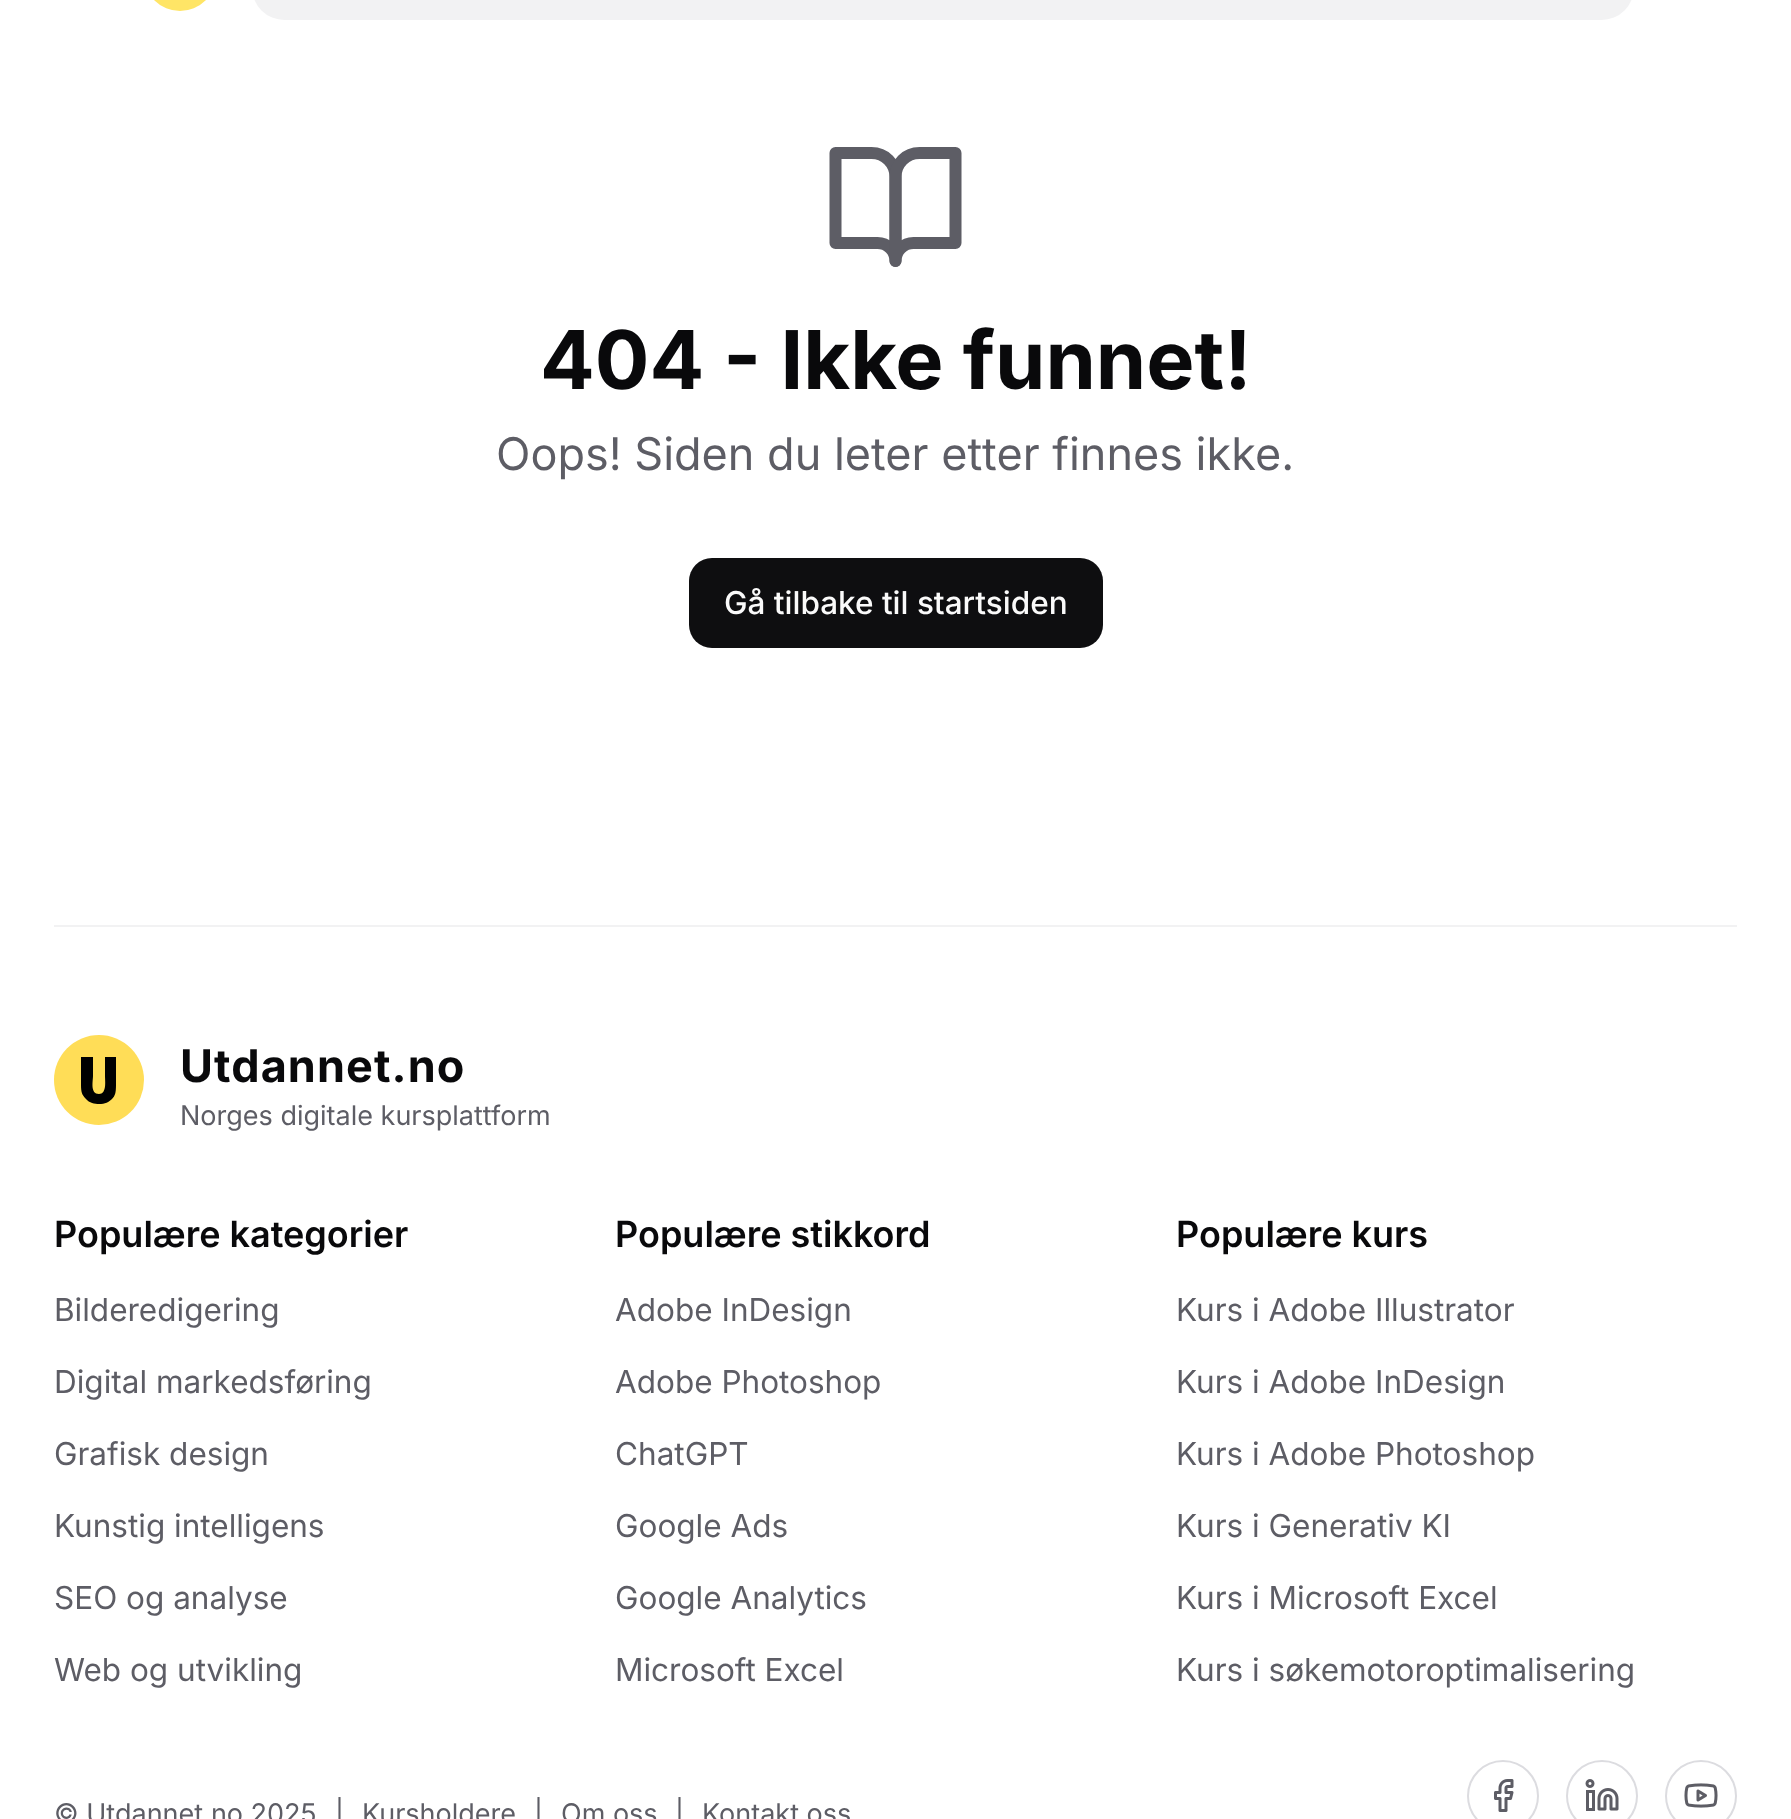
async function draw(canvas) {
  canvas.width = 1791
  canvas.height = 1819
  const ctx = canvas.getContext('2d')
  ctx.miterLimit = 4
  ctx.fontKerning = 'normal'
  async function loadImage(src) {
    const img = new Image()
    img.src = src
    await img.decode()
    return img
  }

  ctx.fillStyle = '#fff'
  ctx.fillRect(0, 0, 1791, 1819)
  ctx.fillStyle = '#ffe566'
  ctx.beginPath()
  ctx.arc(180, -25, 36, 0, 2 * Math.PI)
  ctx.fill()
  ctx.fillStyle = '#f2f2f3'
  ctx.beginPath()
  ctx.roundRect(252, -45, 1382, 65, 45)
  ctx.fill()
  ctx.beginPath()
  ctx.moveTo(835.5, 153)
  ctx.lineTo(871.5, 153)
  ctx.bezierCurveTo(885, 153, 895.5, 163.5, 895.5, 177)
  ctx.lineTo(895.5, 261)
  ctx.bezierCurveTo(895.5, 251, 887.5, 243, 877.5, 243)
  ctx.lineTo(835.5, 243)
  ctx.closePath()
  ctx.strokeStyle = '#5d5d65'
  ctx.lineWidth = 12
  ctx.lineCap = 'round'
  ctx.lineJoin = 'round'
  ctx.stroke()
  ctx.beginPath()
  ctx.moveTo(955.5, 153)
  ctx.lineTo(919.5, 153)
  ctx.bezierCurveTo(906, 153, 895.5, 163.5, 895.5, 177)
  ctx.lineTo(895.5, 261)
  ctx.bezierCurveTo(895.5, 251, 903.5, 243, 913.5, 243)
  ctx.lineTo(955.5, 243)
  ctx.closePath()
  ctx.stroke()
  ctx.font = 'bold 81px Inter'
  ctx.fillStyle = '#09090b'
  ctx.fillText('404 - Ikke funnet!', 540, 389)
  ctx.font = '45px Inter'
  ctx.fillStyle = '#5d5d65'
  ctx.fillText('Oops! Siden du leter etter finnes ikke.', 496, 470)
  ctx.fillStyle = '#0e0e10'
  ctx.beginPath()
  ctx.roundRect(689, 558, 414, 90, 23)
  ctx.fill()
  ctx.font = '500 31.5px Inter'
  ctx.fillStyle = '#fafafa'
  ctx.fillText('Gå tilbake til startsiden', 724, 614)
  ctx.fillStyle = '#f2f2f3'
  ctx.fillRect(54, 925, 1683, 2)
  ctx.fillStyle = '#ffdd57'
  ctx.beginPath()
  ctx.arc(99, 1080, 45, 0, 2 * Math.PI)
  ctx.fill()
  ctx.fillStyle = '#000'
  ctx.beginPath()
  ctx.moveTo(93, 1057)
  ctx.lineTo(93, 1076)
  ctx.bezierCurveTo(93, 1081, 90, 1094, 99, 1094)
  ctx.bezierCurveTo(107, 1094, 105, 1081, 105, 1076)
  ctx.lineTo(105, 1057)
  ctx.lineTo(116, 1057)
  ctx.lineTo(116, 1085)
  ctx.bezierCurveTo(116, 1093, 115, 1096, 112, 1099)
  ctx.bezierCurveTo(109, 1102, 105, 1104, 99, 1104)
  ctx.bezierCurveTo(95, 1104, 89, 1103, 86, 1099)
  ctx.bezierCurveTo(82, 1095, 81, 1092, 81, 1085)
  ctx.lineTo(81, 1057)
  ctx.closePath()
  ctx.fill()
  ctx.letterSpacing = '1.1px'
  ctx.font = 'bold 45px Inter'
  ctx.fillStyle = '#09090b'
  ctx.fillText('Utdannet.no', 180, 1082)
  ctx.letterSpacing = '0px'
  ctx.font = '27px Inter'
  ctx.fillStyle = '#5d5d65'
  ctx.fillText('Norges digitale kursplattform', 180, 1125)
  ctx.font = '600 36px Inter'
  ctx.fillStyle = '#09090b'
  ctx.fillText('Populære kategorier', 54, 1247)
  ctx.font = '31.5px Inter'
  ctx.fillStyle = '#5d5d65'
  ctx.fillText('Bilderedigering', 54, 1321)
  ctx.fillText('Digital markedsføring', 54, 1393)
  ctx.fillText('Grafisk design', 54, 1465)
  ctx.fillText('Kunstig intelligens', 54, 1537)
  ctx.fillText('SEO og analyse', 54, 1609)
  ctx.fillText('Web og utvikling', 54, 1681)
  ctx.font = '600 36px Inter'
  ctx.fillStyle = '#09090b'
  ctx.fillText('Populære stikkord', 615, 1247)
  ctx.font = '31.5px Inter'
  ctx.fillStyle = '#5d5d65'
  ctx.fillText('Adobe InDesign', 615, 1321)
  ctx.fillText('Adobe Photoshop', 615, 1393)
  ctx.fillText('ChatGPT', 615, 1465)
  ctx.fillText('Google Ads', 615, 1537)
  ctx.fillText('Google Analytics', 615, 1609)
  ctx.fillText('Microsoft Excel', 615, 1681)
  ctx.font = '600 36px Inter'
  ctx.fillStyle = '#09090b'
  ctx.fillText('Populære kurs', 1176, 1247)
  ctx.font = '31.5px Inter'
  ctx.fillStyle = '#5d5d65'
  ctx.fillText('Kurs i Adobe Illustrator', 1176, 1321)
  ctx.fillText('Kurs i Adobe InDesign', 1176, 1393)
  ctx.fillText('Kurs i Adobe Photoshop', 1176, 1465)
  ctx.fillText('Kurs i Generativ KI', 1176, 1537)
  ctx.fillText('Kurs i Microsoft Excel', 1176, 1609)
  ctx.fillText('Kurs i søkemotoroptimalisering', 1176, 1681)
  ctx.font = '27px Inter'
  ctx.fillText('© Utdannet.no 2025', 54, 1823)
  ctx.fillText('|', 335, 1823)
  ctx.fillText('Kursholdere', 362, 1823)
  ctx.fillText('|', 534, 1823)
  ctx.fillText('Om oss', 561, 1823)
  ctx.fillText('|', 675, 1823)
  ctx.fillText('Kontakt oss', 702, 1823)
  ctx.beginPath()
  ctx.arc(1503, 1796, 35, 0, 2 * Math.PI)
  ctx.strokeStyle = '#dcdce0'
  ctx.lineWidth = 2
  ctx.stroke()
  ctx.drawImage(await loadImage('image0.png'), 1494, 1779, 20, 33)
  ctx.beginPath()
  ctx.arc(1602, 1796, 35, 0, 2 * Math.PI)
  ctx.stroke()
  ctx.drawImage(await loadImage('image1.png'), 1585, 1779, 34, 32)
  ctx.beginPath()
  ctx.arc(1701, 1796, 35, 0, 2 * Math.PI)
  ctx.stroke()
  ctx.drawImage(await loadImage('image2.png'), 1684, 1783, 34, 25)
}

draw(document.querySelector('canvas'))
